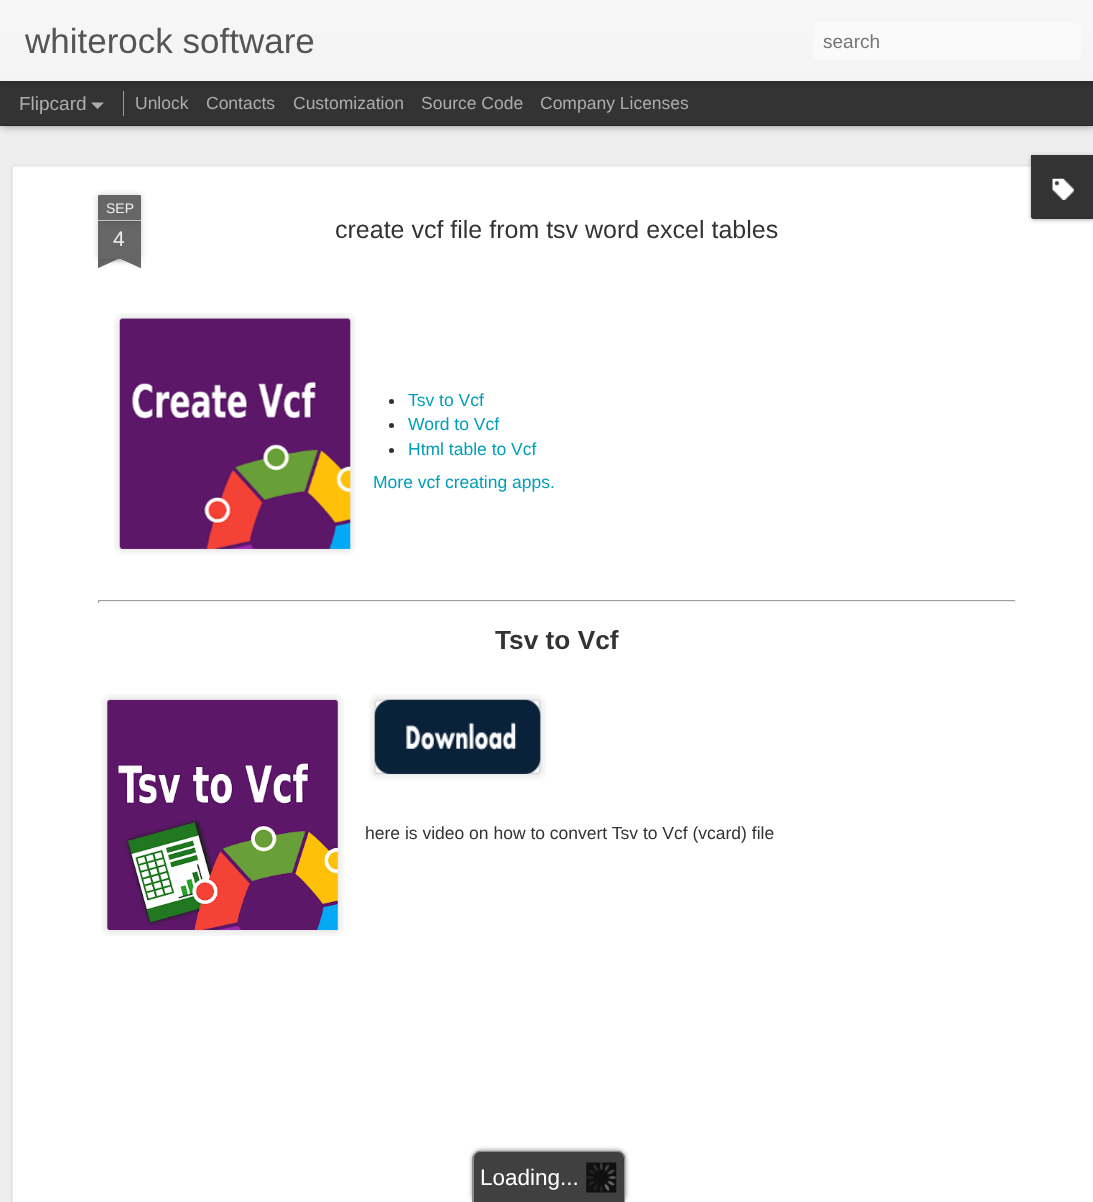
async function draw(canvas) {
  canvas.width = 1093
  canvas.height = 1202
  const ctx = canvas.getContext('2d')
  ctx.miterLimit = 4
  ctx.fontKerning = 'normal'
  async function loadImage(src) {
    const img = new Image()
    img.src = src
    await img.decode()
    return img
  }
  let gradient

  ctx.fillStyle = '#333'
  ctx.fillRect(0, 0, 1093, 1202)
  ctx.fillStyle = '#eee'
  ctx.fillRect(0, 126, 1093, 1076)
  ctx.fillStyle = '#00000080'
  ctx.filter = 'blur(5px)'
  ctx.beginPath()
  ctx.rect(0, 81, 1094, 44)
  ctx.fill()
  ctx.filter = 'none'
  ctx.fillStyle = '#333'
  ctx.fillRect(0, 81, 1093, 44)
  ctx.fillStyle = '#0000004d'
  ctx.filter = 'blur(3px)'
  ctx.beginPath()
  ctx.rect(0, 0, 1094, 81)
  ctx.fill()
  ctx.filter = 'none'
  gradient = ctx.createLinearGradient(0, 0, 0, 81)
  gradient.addColorStop(0, '#f7f7f7')
  gradient.addColorStop(1, '#f4f4f4')
  ctx.fillStyle = gradient
  ctx.fillRect(0, 0, 1093, 81)
  ctx.font = '35px Liberation Sans'
  ctx.fillStyle = '#555'
  ctx.fillText('whiterock software', 25, 53)
  ctx.fillStyle = '#fafafa'
  ctx.beginPath()
  ctx.roundRect(814, 23, 267, 37, 4)
  ctx.fill()
  ctx.font = '19px Liberation Sans'
  ctx.fillStyle = '#757575'
  ctx.fillText('search', 823, 48)
  ctx.fillStyle = '#adadad'
  ctx.fillText('Flipcard', 19, 110)
  ctx.beginPath()
  ctx.moveTo(91, 102.5)
  ctx.lineTo(104, 102.5)
  ctx.lineTo(97.5, 109)
  ctx.closePath()
  ctx.fill()
  ctx.fillStyle = '#999'
  ctx.fillRect(123, 91, 1, 25)
  ctx.font = '17.5px Liberation Sans'
  ctx.fillStyle = '#adadad'
  ctx.fillText('Unlock', 135, 109)
  ctx.fillText('Contacts', 206, 109)
  ctx.fillText('Customization', 293, 109)
  ctx.fillText('Source Code', 421, 109)
  ctx.fillText('Company Licenses', 540, 109)
  ctx.fillStyle = '#fff'
  ctx.fillRect(10, 164, 1083, 1038)
  ctx.drawImage(await loadImage('image1.png'), 10, 164, 1021, 1038)
  ctx.fillStyle = '#0000004d'
  ctx.filter = 'blur(2px)'
  ctx.beginPath()
  ctx.roundRect(1031, 156, 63, 64, 2.5)
  ctx.fill()
  ctx.filter = 'none'
  ctx.fillStyle = '#333'
  ctx.beginPath()
  ctx.moveTo(1031, 155)
  ctx.lineTo(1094, 155)
  ctx.lineTo(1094, 219)
  ctx.lineTo(1033.5, 219)
  ctx.bezierCurveTo(1032, 219, 1031, 218, 1031, 216.5)
  ctx.closePath()
  ctx.fill()
  ctx.drawImage(await loadImage('image0.png'), 1052, 178, 22, 22)
  ctx.fillStyle = '#00000033'
  ctx.filter = 'blur(3px)'
  ctx.beginPath()
  ctx.rect(98, 221, 43, 38)
  ctx.fill()
  ctx.filter = 'none'
  ctx.fillStyle = '#666'
  ctx.fillRect(98, 221, 43, 38)
  ctx.fillStyle = '#00000033'
  ctx.filter = 'blur(3px)'
  ctx.beginPath()
  ctx.roundRect(98, 195, 43, 26, 1)
  ctx.fill()
  ctx.filter = 'none'
  ctx.fillStyle = '#666'
  ctx.beginPath()
  ctx.roundRect(98, 195, 43, 26, [1, 1, 0, 0])
  ctx.fill()
  ctx.fillStyle = '#c2c2c2'
  ctx.fillRect(98, 220, 43, 1)
  ctx.font = '14px Liberation Sans'
  ctx.fillStyle = '#eee'
  ctx.fillText('SEP', 106, 213)
  ctx.font = '21px Liberation Sans'
  ctx.fillText('4', 113, 246)
  ctx.save()
  ctx.beginPath()
  ctx.rect(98, 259, 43, 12)
  ctx.clip()
  ctx.fillStyle = '#00000033'
  ctx.filter = 'blur(3px)'
  ctx.beginPath()
  ctx.rect(86, 246, 63, 13)
  ctx.fill()
  ctx.filter = 'none'
  ctx.restore()
  ctx.save()
  ctx.beginPath()
  ctx.rect(98, 259, 43, 12)
  ctx.clip()
  ctx.fillStyle = '#666'
  ctx.beginPath()
  ctx.moveTo(87, 260)
  ctx.lineTo(143, 234)
  ctx.lineTo(148, 245)
  ctx.lineTo(92, 271)
  ctx.closePath()
  ctx.fill()
  ctx.restore()
  ctx.save()
  ctx.beginPath()
  ctx.rect(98, 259, 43, 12)
  ctx.clip()
  ctx.fillStyle = '#00000033'
  ctx.filter = 'blur(3px)'
  ctx.beginPath()
  ctx.rect(90, 246, 63, 13)
  ctx.fill()
  ctx.filter = 'none'
  ctx.restore()
  ctx.save()
  ctx.beginPath()
  ctx.rect(98, 259, 43, 12)
  ctx.clip()
  ctx.fillStyle = '#666'
  ctx.beginPath()
  ctx.moveTo(96, 234)
  ctx.lineTo(152, 260)
  ctx.lineTo(147, 271)
  ctx.lineTo(90, 245)
  ctx.closePath()
  ctx.fill()
  ctx.restore()
  ctx.font = '25px Liberation Sans'
  ctx.fillStyle = '#333'
  ctx.fillText('create vcf file from tsv word excel tables', 335, 238)
  ctx.drawImage(await loadImage('image2.png'), 114, 313, 242, 242)
  ctx.drawImage(await loadImage('image3.png'), 119, 318, 232, 231)
  ctx.beginPath()
  ctx.arc(391.5, 401.5, 2.5, 0, 2 * Math.PI)
  ctx.fill()
  ctx.font = '17.5px Liberation Sans'
  ctx.fillStyle = '#009eb8'
  ctx.fillText('Tsv to Vcf', 408, 406)
  ctx.fillStyle = '#333'
  ctx.beginPath()
  ctx.arc(391.5, 425.5, 2.5, 0, 2 * Math.PI)
  ctx.fill()
  ctx.fillStyle = '#009eb8'
  ctx.fillText('Word to Vcf', 408, 430)
  ctx.fillStyle = '#333'
  ctx.beginPath()
  ctx.arc(391.5, 450.5, 2.5, 0, 2 * Math.PI)
  ctx.fill()
  ctx.fillStyle = '#009eb8'
  ctx.fillText('Html table to Vcf', 408, 455)
  ctx.fillText('More vcf creating apps.', 373, 488)
  ctx.fillStyle = '#9f9f9f'
  ctx.fillRect(98, 600, 918, 1)
  ctx.fillStyle = '#eee'
  ctx.fillRect(1015, 600, 1, 3)
  ctx.fillRect(98, 601, 918, 1)
  ctx.fillStyle = '#9f9f9f'
  ctx.fillRect(98, 600, 1, 3)
  ctx.font = 'bold 26.25px Liberation Sans'
  ctx.fillStyle = '#333'
  ctx.fillText('Tsv to Vcf', 495, 649)
  ctx.drawImage(await loadImage('image4.png'), 101, 694, 243, 242)
  ctx.drawImage(await loadImage('image5.png'), 107, 699, 231, 231)
  ctx.drawImage(await loadImage('image6.png'), 369, 694, 177, 86)
  ctx.drawImage(await loadImage('image7.png'), 374, 699, 167, 75)
  ctx.font = '17.5px Liberation Sans'
  ctx.fillText('here is video on how to convert Tsv to Vcf (vcard) file', 365, 839)
  ctx.fillStyle = '#666'
  ctx.filter = 'blur(2.5px)'
  ctx.beginPath()
  ctx.roundRect(473, 1151, 152, 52, 8)
  ctx.fill()
  ctx.filter = 'none'
  ctx.fillStyle = '#404040'
  ctx.beginPath()
  ctx.moveTo(481, 1151)
  ctx.lineTo(617, 1151)
  ctx.bezierCurveTo(621.5, 1151, 625, 1154.5, 625, 1159)
  ctx.lineTo(625, 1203)
  ctx.lineTo(473, 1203)
  ctx.lineTo(473, 1159)
  ctx.bezierCurveTo(473, 1154.5, 476.5, 1151, 481, 1151)
  ctx.closePath()
  ctx.fill()
  ctx.fillStyle = '#8c8c8c'
  ctx.beginPath()
  ctx.moveTo(480, 1151)
  ctx.lineTo(618, 1151)
  ctx.bezierCurveTo(622, 1151, 625, 1155, 625, 1159)
  ctx.lineTo(625, 1202)
  ctx.lineTo(472, 1202)
  ctx.lineTo(472, 1159)
  ctx.bezierCurveTo(472, 1155, 476, 1151, 480, 1151)
  ctx.closePath()
  ctx.moveTo(480, 1152)
  ctx.lineTo(618, 1152)
  ctx.bezierCurveTo(621, 1152, 624, 1155, 624, 1159)
  ctx.lineTo(624, 1202)
  ctx.lineTo(474, 1202)
  ctx.lineTo(474, 1159)
  ctx.bezierCurveTo(474, 1155, 477, 1152, 480, 1152)
  ctx.closePath()
  ctx.fill('evenodd')
  ctx.drawImage(await loadImage('image8.png'), 586, 1162, 31, 31)
  ctx.font = '22.5px Liberation Sans'
  ctx.fillStyle = '#fff'
  ctx.fillText('Loading...', 480, 1185)
}

draw(document.querySelector('canvas'))
